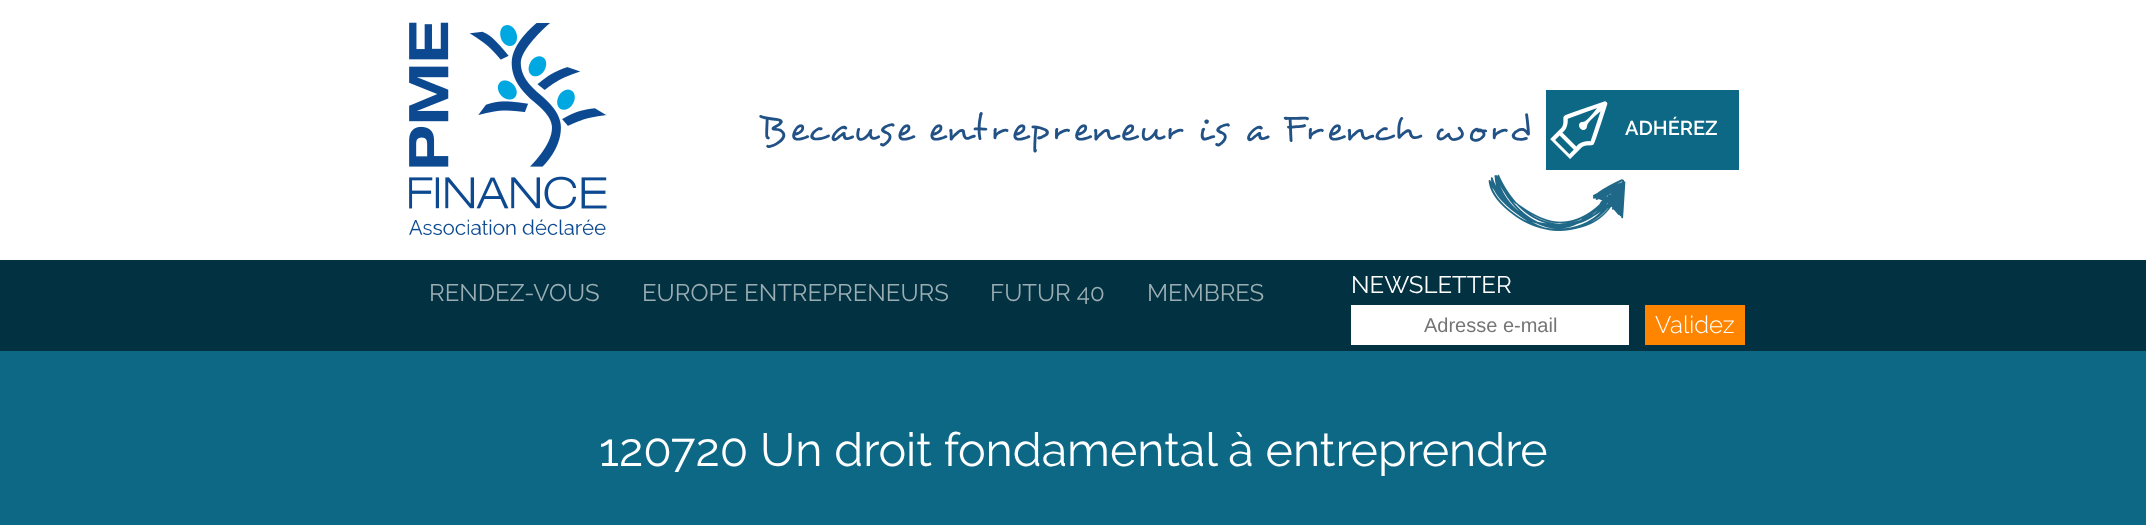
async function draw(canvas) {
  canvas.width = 2146
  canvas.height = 525
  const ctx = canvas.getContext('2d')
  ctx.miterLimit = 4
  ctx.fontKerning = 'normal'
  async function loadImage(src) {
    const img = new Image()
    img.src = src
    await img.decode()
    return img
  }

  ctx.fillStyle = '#fff'
  ctx.fillRect(0, 0, 2146, 525)
  ctx.drawImage(await loadImage('image0.png'), 409, 22, 198, 213)
  ctx.letterSpacing = '5px'
  ctx.font = '37.25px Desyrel'
  ctx.fillStyle = '#225285'
  ctx.fillText('Because', 760, 139)
  ctx.fillText('entrepreneur', 928, 139)
  ctx.wordSpacing = '-6px'
  ctx.fillText('is a', 1197, 139)
  ctx.fillText('French word', 1283, 139)
  ctx.fillStyle = '#0d6885'
  ctx.fillRect(1546, 90, 193, 80)
  ctx.drawImage(await loadImage('image1.png'), 1550, 101, 58, 58)
  ctx.letterSpacing = '0px'
  ctx.wordSpacing = '0px'
  ctx.font = '600 20px Raleway'
  ctx.fillStyle = '#fff'
  ctx.fillText('ADHÉREZ', 1625, 135)
  ctx.drawImage(await loadImage('image2.png'), 1488, 174, 138, 57)
  ctx.fillStyle = '#023141'
  ctx.fillRect(0, 260, 2146, 91)
  ctx.font = '24px Raleway'
  ctx.fillStyle = '#9aadb3'
  ctx.fillText('RENDEZ-VOUS', 429, 301)
  ctx.fillText('EUROPE ENTREPRENEURS', 642, 301)
  ctx.fillText('FUTUR 40', 990, 301)
  ctx.fillText('MEMBRES', 1147, 301)
  ctx.fillStyle = '#fff'
  ctx.fillText('NEWSLETTER', 1351, 293)
  ctx.fillRect(1351, 305, 278, 40)
  ctx.font = '20px Liberation Sans'
  ctx.fillStyle = '#757575'
  ctx.fillText('Adresse e-mail', 1424, 332)
  ctx.fillStyle = '#ff8500'
  ctx.fillRect(1645, 305, 100, 40)
  ctx.font = '300 24px Raleway'
  ctx.fillStyle = '#fff'
  ctx.fillText('Validez', 1655, 333)
  ctx.fillStyle = '#0d6885'
  ctx.fillRect(0, 351, 2146, 174)
  ctx.font = '46.6px Raleway'
  ctx.fillStyle = '#fff'
  ctx.fillText('120720 Un droit fondamental à entreprendre', 599, 466)
}

draw(document.querySelector('canvas'))
